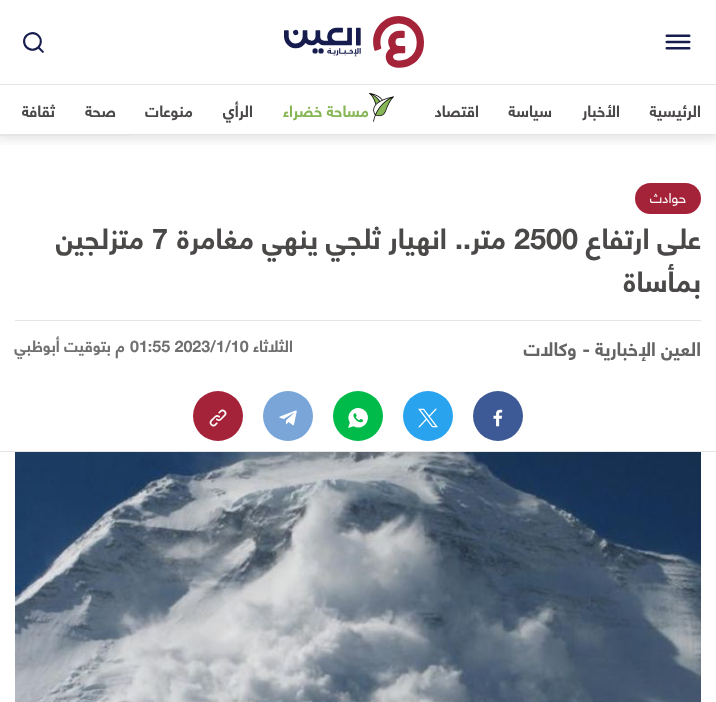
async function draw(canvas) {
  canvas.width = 716
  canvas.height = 702
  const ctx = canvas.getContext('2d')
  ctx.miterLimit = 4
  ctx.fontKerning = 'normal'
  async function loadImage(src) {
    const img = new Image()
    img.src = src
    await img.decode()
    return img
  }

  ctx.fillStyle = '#fff'
  ctx.fillRect(0, 0, 716, 702)
  ctx.fillStyle = '#fafafa'
  ctx.fillRect(0, 134, 716, 1)
  ctx.save()
  ctx.beginPath()
  ctx.rect(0, 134, 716, 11)
  ctx.clip()
  ctx.fillStyle = '#1717171f'
  ctx.filter = 'blur(6px)'
  ctx.beginPath()
  ctx.rect(-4, -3, 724, 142)
  ctx.fill()
  ctx.filter = 'none'
  ctx.restore()
  ctx.drawImage(await loadImage('image0.png'), 665, 34, 26, 16)
  ctx.drawImage(await loadImage('image1.png'), 284, 16, 140, 52)
  ctx.drawImage(await loadImage('image2.png'), 23, 32, 21, 21)
  ctx.fillStyle = '#e6e5e5'
  ctx.fillRect(0, 84, 716, 1)
  ctx.direction = 'rtl'
  ctx.font = 'bold 16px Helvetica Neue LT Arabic'
  ctx.fillStyle = '#4b4848'
  ctx.fillText('الرئيسية', 701, 117)
  ctx.fillText('الأخبار', 620, 117)
  ctx.fillText('سياسة', 552, 117)
  ctx.fillText('اقتصاد', 479, 117)
  ctx.drawImage(await loadImage('image3.png'), 369, 93, 25, 29)
  ctx.fillStyle = '#87b656'
  ctx.fillText('مساحة خضراء', 369, 117)
  ctx.fillStyle = '#4b4848'
  ctx.fillText('الرأي', 253, 117)
  ctx.fillText('منوعات', 193, 117)
  ctx.fillStyle = '#e6e5e5'
  ctx.fillRect(0, 135, 131, 1)
  ctx.fillStyle = '#4b4848'
  ctx.fillText('صحة', 116, 117)
  ctx.fillText('ثقافة', 55, 117)
  ctx.fillStyle = '#a52339'
  ctx.beginPath()
  ctx.roundRect(635, 183, 66, 31, 15.5)
  ctx.fill()
  ctx.font = '14px Helvetica Neue LT Arabic'
  ctx.fillStyle = '#fff'
  ctx.fillText('حوادث', 686, 203)
  ctx.font = 'bold 28.75px Helvetica Neue LT Arabic'
  ctx.fillStyle = '#4b4848'
  ctx.fillText('على ارتفاع', 701, 249)
  ctx.direction = 'ltr'
  ctx.fillText('2500', 514, 249)
  ctx.direction = 'rtl'
  ctx.fillText('متر.. انهيار ثلجي ينهي مغامرة', 506, 249)
  ctx.direction = 'ltr'
  ctx.fillText('7', 152, 249)
  ctx.direction = 'rtl'
  ctx.fillText('متزلجين', 144, 249)
  ctx.fillText('بمأساة', 701, 292)
  ctx.fillStyle = '#e6e5e5'
  ctx.fillRect(15, 320, 686, 1)
  ctx.font = 'bold 19.25px Helvetica Neue LT Arabic'
  ctx.fillStyle = '#646464'
  ctx.fillText('العين الإخبارية', 701, 356)
  ctx.fillText('- وكالات', 590, 356)
  ctx.font = 'bold 16px Helvetica Neue LT Arabic'
  ctx.fillStyle = '#707070'
  ctx.fillText('الثلاثاء', 293, 352)
  ctx.direction = 'ltr'
  ctx.fillText('01:55 2023/1/10', 130, 352)
  ctx.direction = 'rtl'
  ctx.fillText('م', 125, 352)
  ctx.fillText('بتوقيت أبوظبي', 111, 352)
  ctx.fillStyle = '#e6e5e5'
  ctx.fillRect(0, 451, 716, 1)
  ctx.fillStyle = '#3d5a96'
  ctx.beginPath()
  ctx.arc(498, 416, 25, 0, 2 * Math.PI)
  ctx.fill()
  ctx.drawImage(await loadImage('image4.png'), 493, 409, 10, 18)
  ctx.fillStyle = '#2aa3ef'
  ctx.beginPath()
  ctx.arc(428, 416, 25, 0, 2 * Math.PI)
  ctx.fill()
  ctx.drawImage(await loadImage('image5.png'), 418, 408, 20, 20)
  ctx.fillStyle = '#00bb49'
  ctx.beginPath()
  ctx.arc(358, 416, 25, 0, 2 * Math.PI)
  ctx.fill()
  ctx.drawImage(await loadImage('image6.png'), 348, 408, 20, 20)
  ctx.fillStyle = '#7aa5d9'
  ctx.beginPath()
  ctx.arc(288, 416, 25, 0, 2 * Math.PI)
  ctx.fill()
  ctx.drawImage(await loadImage('image7.png'), 279, 410, 18, 16)
  ctx.fillStyle = '#a52339'
  ctx.beginPath()
  ctx.arc(218, 416, 25, 0, 2 * Math.PI)
  ctx.fill()
  ctx.drawImage(await loadImage('image8.png'), 209, 409, 18, 18)
  ctx.drawImage(await loadImage('image9.png'), 15, 452, 686, 250)
}

draw(document.querySelector('canvas'))
